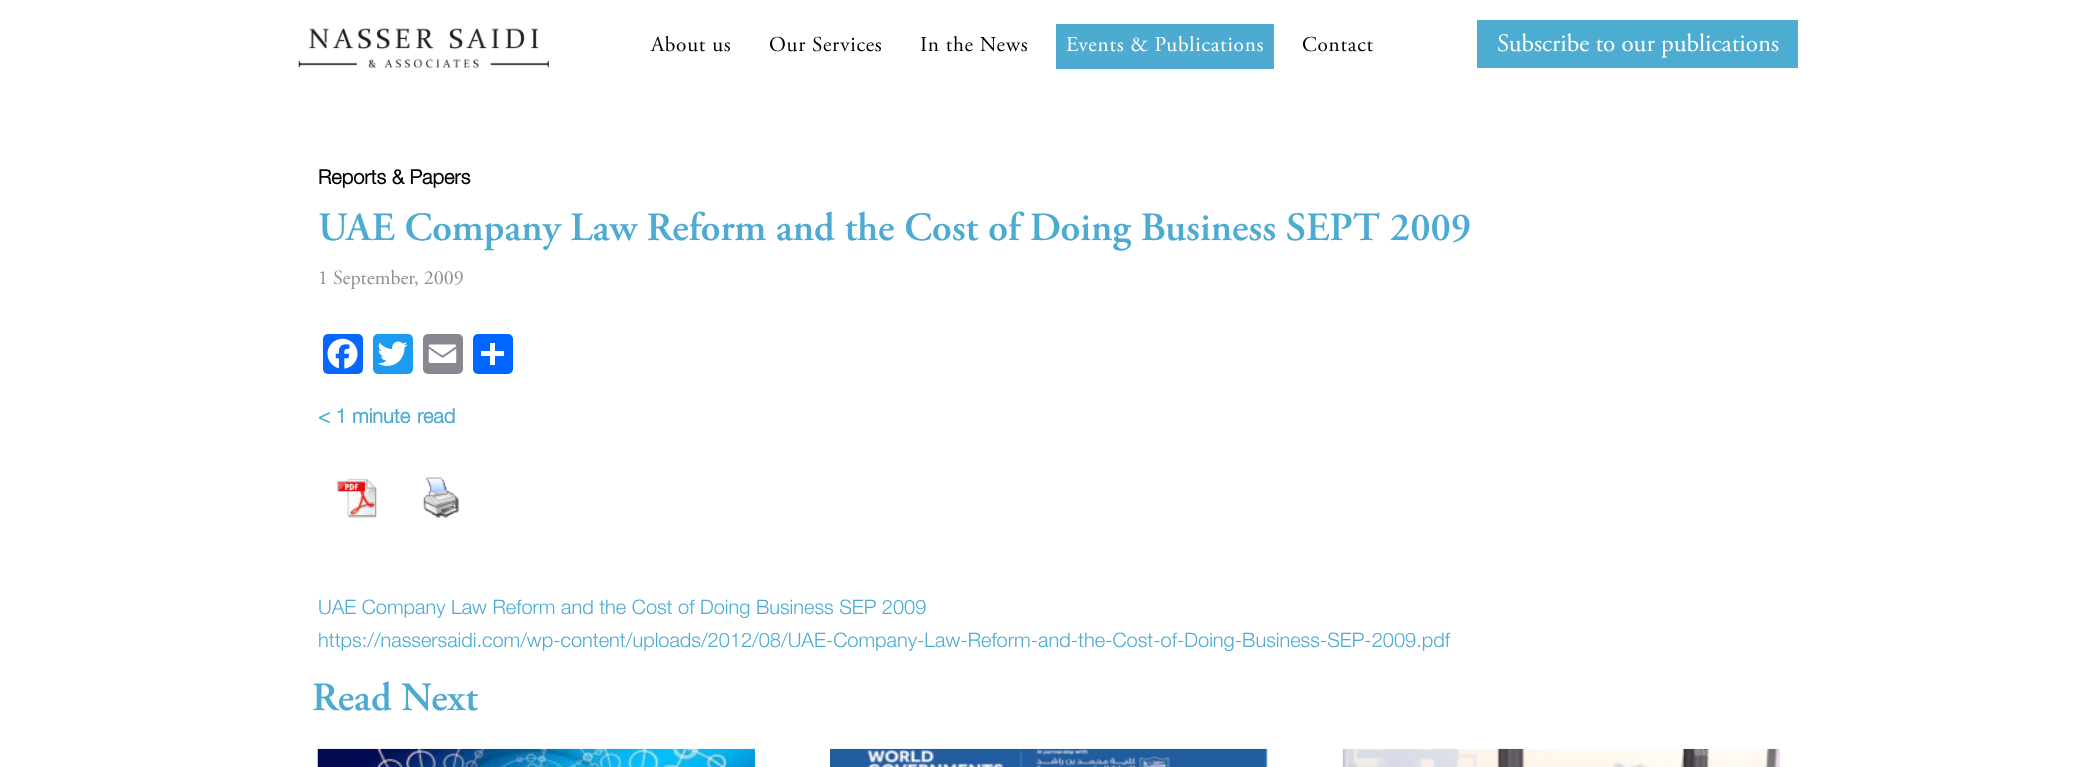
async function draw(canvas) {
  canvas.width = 2097
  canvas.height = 767
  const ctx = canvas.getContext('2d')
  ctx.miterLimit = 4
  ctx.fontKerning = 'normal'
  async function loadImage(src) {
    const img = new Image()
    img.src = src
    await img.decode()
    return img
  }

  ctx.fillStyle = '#fff'
  ctx.fillRect(0, 0, 2097, 767)
  ctx.drawImage(await loadImage('image0.png'), 298, 28, 251, 40)
  ctx.letterSpacing = '0.75px'
  ctx.font = '21.25px Adobe Garamond'
  ctx.fillStyle = '#000'
  ctx.fillText('About us', 651, 51)
  ctx.fillText('Our Services', 769, 51)
  ctx.fillText('In the News', 920, 51)
  ctx.fillStyle = '#4dabd2'
  ctx.fillRect(1056, 24, 218, 45)
  ctx.fillStyle = '#fff'
  ctx.fillText('Events & Publications', 1066, 51)
  ctx.fillStyle = '#000'
  ctx.fillText('Contact', 1302, 51)
  ctx.fillStyle = '#4dacd2'
  ctx.fillRect(1477, 20, 321, 48)
  ctx.letterSpacing = '0px'
  ctx.font = '25px Adobe Garamond'
  ctx.fillStyle = '#fff'
  ctx.fillText('Subscribe to our publications', 1497, 51)
  ctx.font = 'bold 20px Helvetica Neue'
  ctx.fillStyle = '#000'
  ctx.fillText('Reports & Papers', 318, 184)
  ctx.font = '600 40px Adobe Garamond'
  ctx.fillStyle = '#4dabd2'
  ctx.fillText('UAE Company Law Reform and the Cost of Doing Business SEPT 2009', 318, 240)
  ctx.font = '20px Adobe Garamond'
  ctx.fillStyle = '#8f8f8f'
  ctx.fillText('1 September, 2009', 318, 284)
  ctx.fillStyle = '#0866ff'
  ctx.beginPath()
  ctx.roundRect(323, 334, 40, 40, 5)
  ctx.fill()
  ctx.drawImage(await loadImage('image1.png'), 327, 338, 31, 31)
  ctx.fillStyle = '#1d9bf0'
  ctx.beginPath()
  ctx.roundRect(373, 334, 40, 40, 5)
  ctx.fill()
  ctx.drawImage(await loadImage('image2.png'), 377, 341, 31, 25)
  ctx.fillStyle = '#888990'
  ctx.beginPath()
  ctx.roundRect(423, 334, 40, 40, 5)
  ctx.fill()
  ctx.drawImage(await loadImage('image3.png'), 428, 344, 29, 19)
  ctx.fillStyle = '#0166ff'
  ctx.beginPath()
  ctx.roundRect(473, 334, 40, 40, 5)
  ctx.fill()
  ctx.fillStyle = '#fff'
  ctx.fillRect(490, 343, 5, 22)
  ctx.fillRect(481, 351, 23, 5)
  ctx.font = 'bold 20px Helvetica Neue'
  ctx.fillStyle = '#4dabd2'
  ctx.fillText('< 1', 318, 423)
  ctx.fillText('minute', 352, 423)
  ctx.fillText('read', 417, 423)
  ctx.drawImage(await loadImage('image4.png'), 337, 478, 40, 40)
  ctx.drawImage(await loadImage('image5.png'), 423, 477, 36, 41)
  ctx.font = '300 20px Helvetica Neue'
  ctx.fillText('UAE Company Law Reform and the Cost of Doing Business SEP 2009', 318, 614)
  ctx.fillText('https://nassersaidi.com/wp-content/uploads/2012/08/UAE-Company-Law-Reform-and-the-Cost-of-Doing-Business-SEP-2009.pdf', 318, 647)
  ctx.font = '600 40px Adobe Garamond'
  ctx.fillText('Read Next', 312, 710)
  ctx.drawImage(await loadImage('image6.png'), 317, 748, 438, 19)
  ctx.drawImage(await loadImage('image7.png'), 830, 748, 438, 19)
  ctx.drawImage(await loadImage('image8.png'), 1342, 748, 438, 19)
}

draw(document.querySelector('canvas'))
